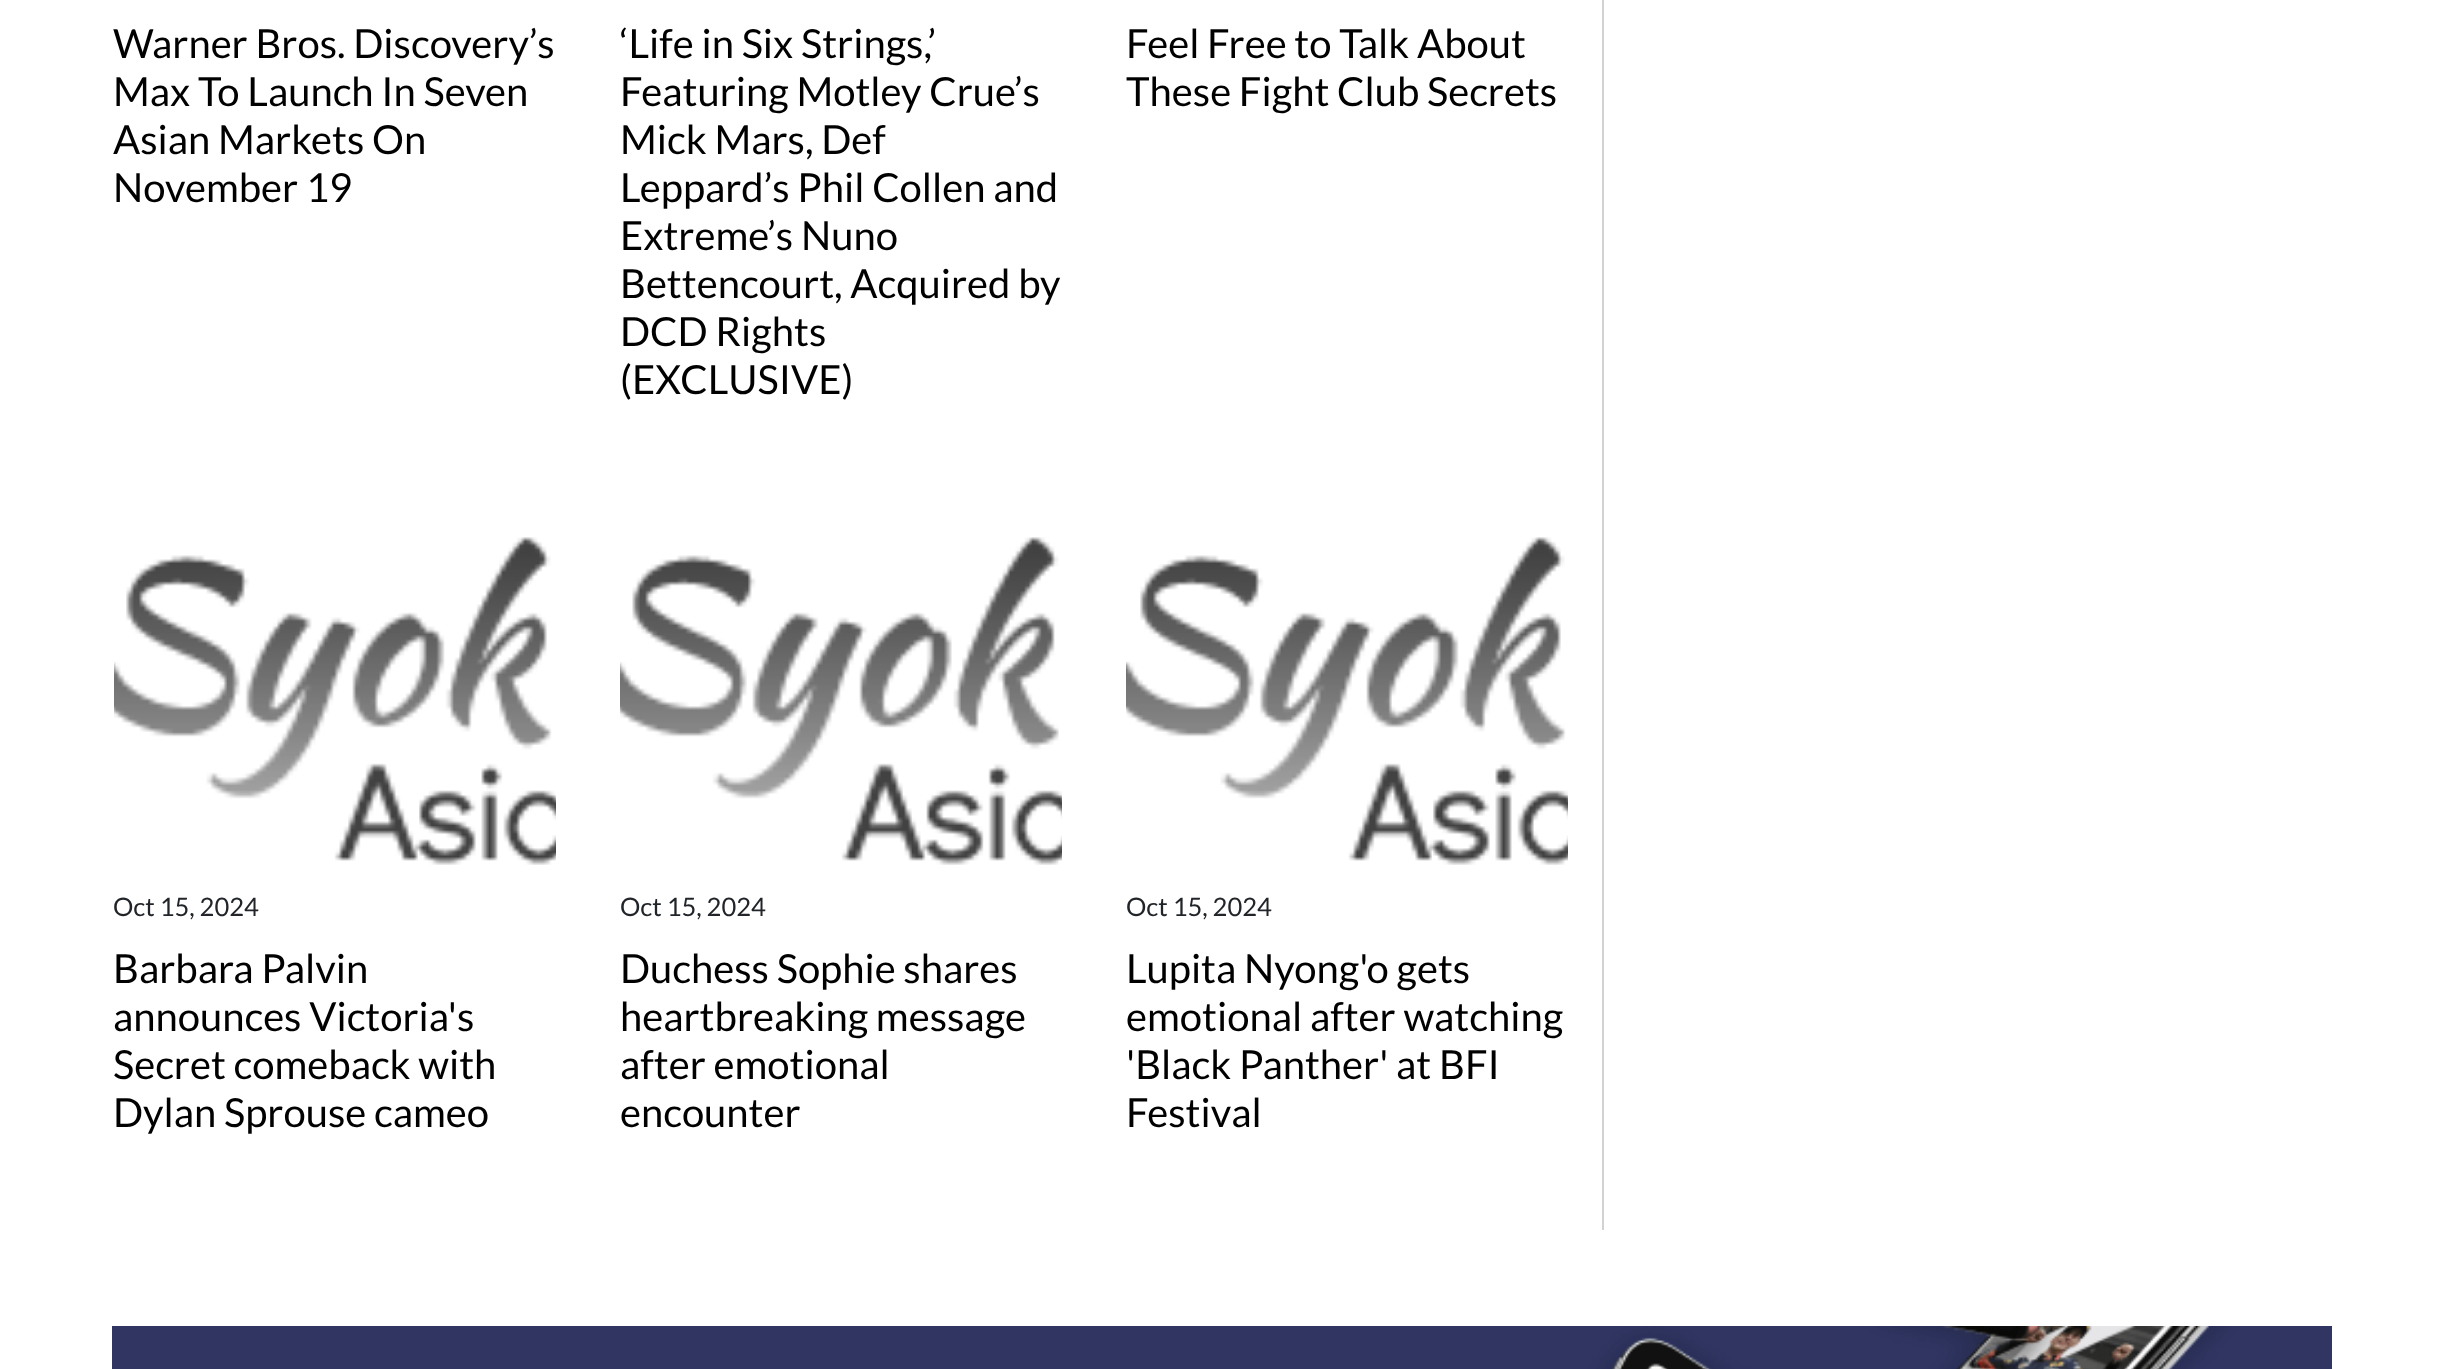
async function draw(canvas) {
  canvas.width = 2441
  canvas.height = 1369
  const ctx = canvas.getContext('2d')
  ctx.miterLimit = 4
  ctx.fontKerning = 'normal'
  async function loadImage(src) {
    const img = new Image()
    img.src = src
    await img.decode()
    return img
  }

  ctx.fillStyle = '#fff'
  ctx.fillRect(0, 0, 2441, 1369)
  ctx.font = '40px Lato'
  ctx.fillStyle = '#000'
  ctx.fillText('Warner Bros. Discovery’s', 113, 58)
  ctx.fillText('Max To Launch In Seven', 113, 106)
  ctx.fillText('Asian Markets On', 113, 154)
  ctx.fillText('November 19', 113, 202)
  ctx.fillText('‘Life in Six Strings,’', 620, 58)
  ctx.fillText('Featuring Motley Crue’s', 620, 106)
  ctx.fillText('Mick Mars, Def', 620, 154)
  ctx.fillText('Leppard’s Phil Collen and', 620, 202)
  ctx.fillText('Extreme’s Nuno', 620, 250)
  ctx.fillText('Bettencourt, Acquired by', 620, 298)
  ctx.fillText('DCD Rights', 620, 346)
  ctx.fillText('(EXCLUSIVE)', 620, 394)
  ctx.fillText('Feel Free to Talk About', 1126, 58)
  ctx.fillText('These Fight Club Secrets', 1126, 106)
  ctx.drawImage(await loadImage('image0.png'), 114, 537, 442, 328)
  ctx.font = '25.5px Lato'
  ctx.fillStyle = '#212529'
  ctx.fillText('Oct 15, 2024', 113, 916)
  ctx.font = '40px Lato'
  ctx.fillStyle = '#000'
  ctx.fillText('Barbara Palvin', 113, 983)
  ctx.fillText('announces Victoria\'s', 113, 1031)
  ctx.fillText('Secret comeback with', 113, 1079)
  ctx.fillText('Dylan Sprouse cameo', 113, 1127)
  ctx.drawImage(await loadImage('image1.png'), 620, 537, 442, 328)
  ctx.font = '25.5px Lato'
  ctx.fillStyle = '#212529'
  ctx.fillText('Oct 15, 2024', 620, 916)
  ctx.font = '40px Lato'
  ctx.fillStyle = '#000'
  ctx.fillText('Duchess Sophie shares', 620, 983)
  ctx.fillText('heartbreaking message', 620, 1031)
  ctx.fillText('after emotional', 620, 1079)
  ctx.fillText('encounter', 620, 1127)
  ctx.drawImage(await loadImage('image2.png'), 1126, 537, 442, 328)
  ctx.font = '25.5px Lato'
  ctx.fillStyle = '#212529'
  ctx.fillText('Oct 15, 2024', 1126, 916)
  ctx.font = '40px Lato'
  ctx.fillStyle = '#000'
  ctx.fillText('Lupita Nyong\'o gets', 1126, 983)
  ctx.fillText('emotional after watching', 1126, 1031)
  ctx.fillText('\'Black Panther\' at BFI', 1126, 1079)
  ctx.fillText('Festival', 1126, 1127)
  ctx.fillStyle = '#d2d2d2'
  ctx.fillRect(1602, 0, 2, 1230)
  ctx.drawImage(await loadImage('image3.png'), 112, 1326, 2220, 43)
}

draw(document.querySelector('canvas'))
